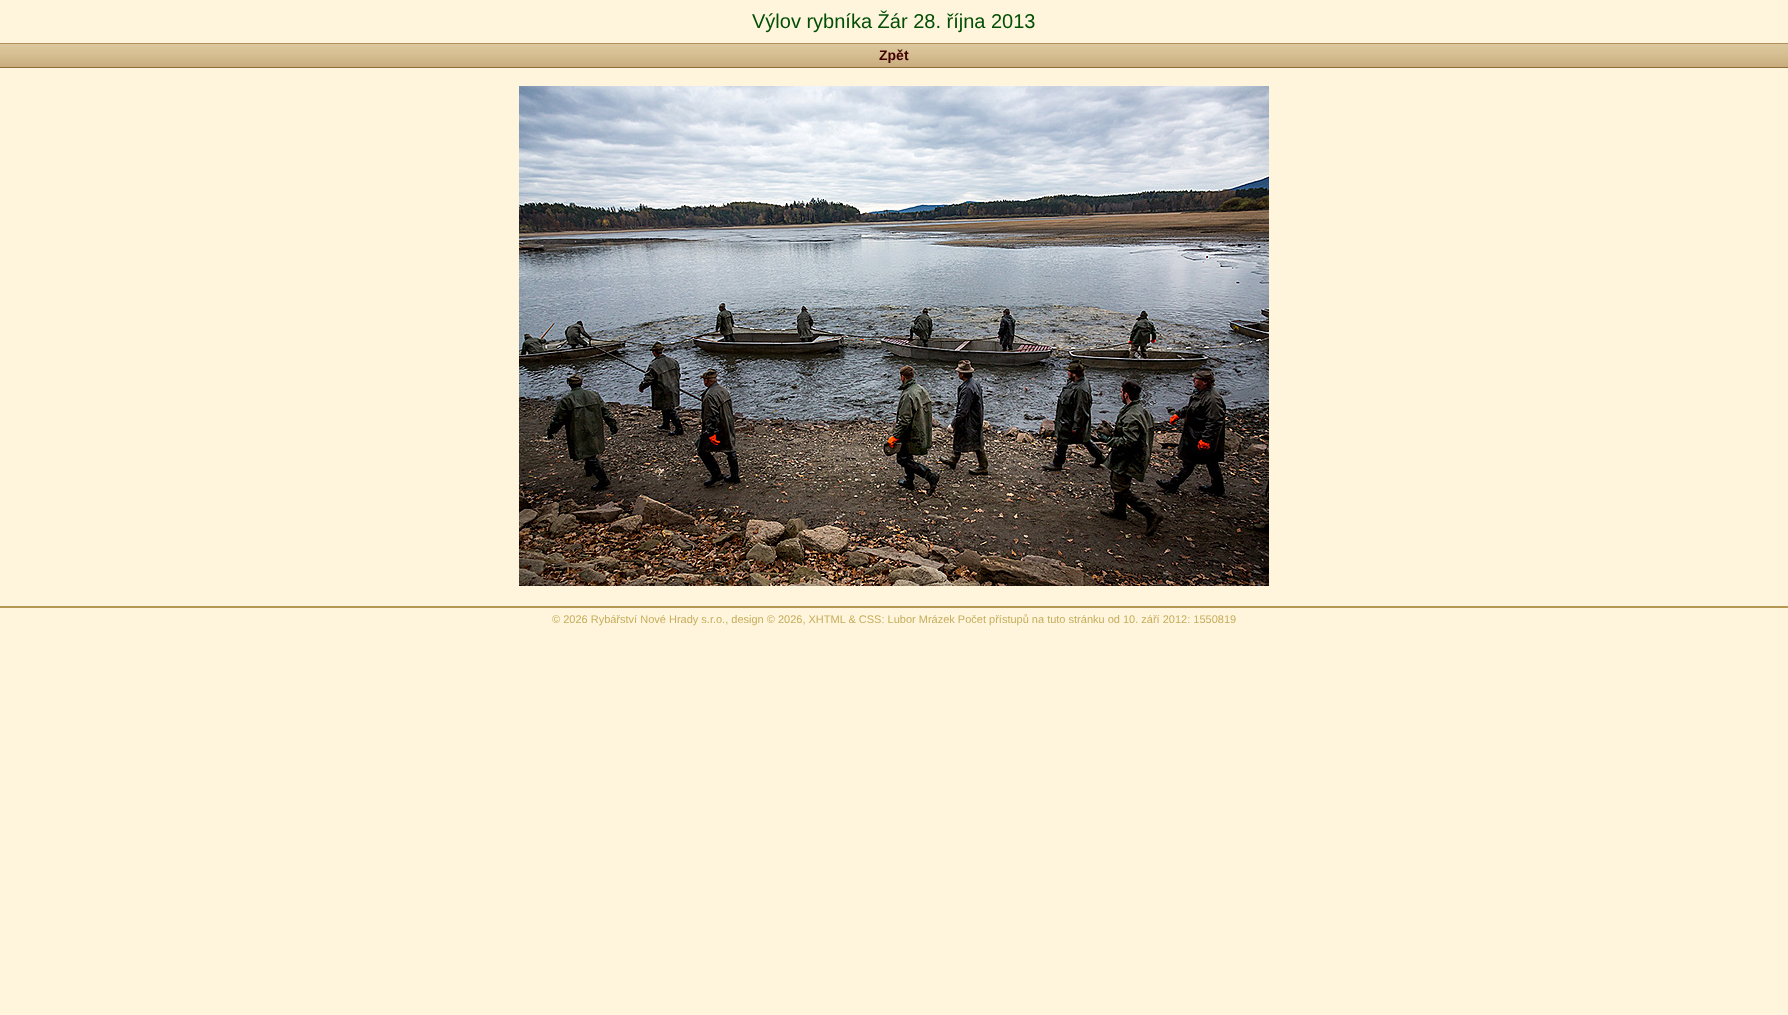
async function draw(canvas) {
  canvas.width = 1788
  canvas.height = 1015
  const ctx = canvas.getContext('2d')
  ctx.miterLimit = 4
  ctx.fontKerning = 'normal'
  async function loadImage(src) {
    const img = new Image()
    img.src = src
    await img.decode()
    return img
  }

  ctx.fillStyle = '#fff4dc'
  ctx.fillRect(0, 0, 1788, 1015)
  ctx.font = '20px Liberation Sans'
  ctx.fillStyle = '#004f04'
  ctx.fillText('Výlov rybníka Žár 28. října 2013', 752, 28)
  ctx.drawImage(await loadImage('image0.png'), 0, 43, 1788, 24)
  ctx.fillStyle = '#926e3a'
  ctx.fillRect(0, 67, 1788, 1)
  ctx.font = 'bold 14px Liberation Sans'
  ctx.fillStyle = '#400000'
  ctx.fillText('Zpět', 879, 60)
  ctx.drawImage(await loadImage('image1.png'), 519, 86, 750, 500)
  ctx.fillStyle = '#b59854'
  ctx.fillRect(0, 606, 1788, 2)
  ctx.font = '11px Liberation Sans'
  ctx.fillStyle = '#c6ae5c'
  ctx.fillText('© 2026 Rybářství Nové Hrady s.r.o., design © 2026, XHTML & CSS: Lubor Mrázek Počet přístupů na tuto stránku od 10. září 2012: 1550819', 552, 623)
}

draw(document.querySelector('canvas'))
